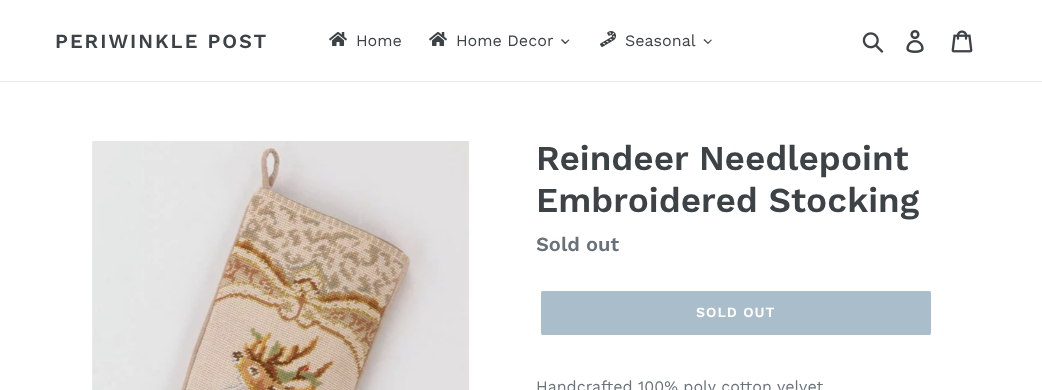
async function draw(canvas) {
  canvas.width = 1042
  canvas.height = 390
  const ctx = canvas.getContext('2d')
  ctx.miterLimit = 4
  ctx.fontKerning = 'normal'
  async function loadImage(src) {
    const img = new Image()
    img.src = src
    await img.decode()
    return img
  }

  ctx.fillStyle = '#fff'
  ctx.fillRect(0, 0, 1042, 390)
  ctx.fillStyle = '#e8e9eb'
  ctx.fillRect(0, 81, 1042, 1)
  ctx.letterSpacing = '2px'
  ctx.font = '600 20px Work Sans'
  ctx.fillStyle = '#3d4246'
  ctx.fillText('PERIWINKLE POST', 55, 48)
  ctx.drawImage(await loadImage('image0.png'), 329, 32, 18, 14)
  ctx.letterSpacing = '0px'
  ctx.font = '16px Work Sans'
  ctx.fillText('Home', 356, 46)
  ctx.drawImage(await loadImage('image0.png'), 429, 32, 18, 14)
  ctx.fillText('Home Decor', 456, 46)
  ctx.beginPath()
  ctx.moveTo(568.5, 39.5)
  ctx.lineTo(569.5, 40)
  ctx.lineTo(565.5, 44)
  ctx.lineTo(564.5, 43)
  ctx.closePath()
  ctx.fill()
  ctx.beginPath()
  ctx.moveTo(562, 39)
  ctx.lineTo(566, 43)
  ctx.lineTo(565, 44)
  ctx.lineTo(561, 40)
  ctx.closePath()
  ctx.fill()
  ctx.drawImage(await loadImage('image1.png'), 600, 31, 16, 16)
  ctx.fillText('Seasonal', 625, 46)
  ctx.beginPath()
  ctx.moveTo(711, 39.5)
  ctx.lineTo(712, 40)
  ctx.lineTo(708, 44)
  ctx.lineTo(707.5, 43)
  ctx.closePath()
  ctx.fill()
  ctx.beginPath()
  ctx.moveTo(704.5, 39)
  ctx.lineTo(708.5, 43)
  ctx.lineTo(708, 44)
  ctx.lineTo(703.5, 40)
  ctx.closePath()
  ctx.fill()
  ctx.drawImage(await loadImage('image2.png'), 862, 32, 22, 21)
  ctx.drawImage(await loadImage('image3.png'), 906, 30, 18, 23)
  ctx.drawImage(await loadImage('image4.png'), 951, 30, 22, 23)
  ctx.drawImage(await loadImage('image5.png'), 92, 141, 378, 249)
  ctx.font = '600 35px Work Sans'
  ctx.fillText('Reindeer Needlepoint', 536, 170)
  ctx.fillText('Embroidered Stocking', 536, 212)
  ctx.font = '600 20px Work Sans'
  ctx.fillStyle = '#69727b'
  ctx.fillText('Sold out', 536, 251)
  ctx.fillStyle = '#aabdcb'
  ctx.beginPath()
  ctx.roundRect(541, 291, 390, 44, 2)
  ctx.fill()
  ctx.letterSpacing = '1px'
  ctx.font = '600 14px Work Sans'
  ctx.fillStyle = '#fff'
  ctx.fillText('SOLD OUT', 696, 317)
  ctx.letterSpacing = '0px'
  ctx.font = '16px Work Sans'
  ctx.fillStyle = '#69727b'
  ctx.fillText('Handcrafted 100% poly cotton velvet', 536, 392)
}

draw(document.querySelector('canvas'))
